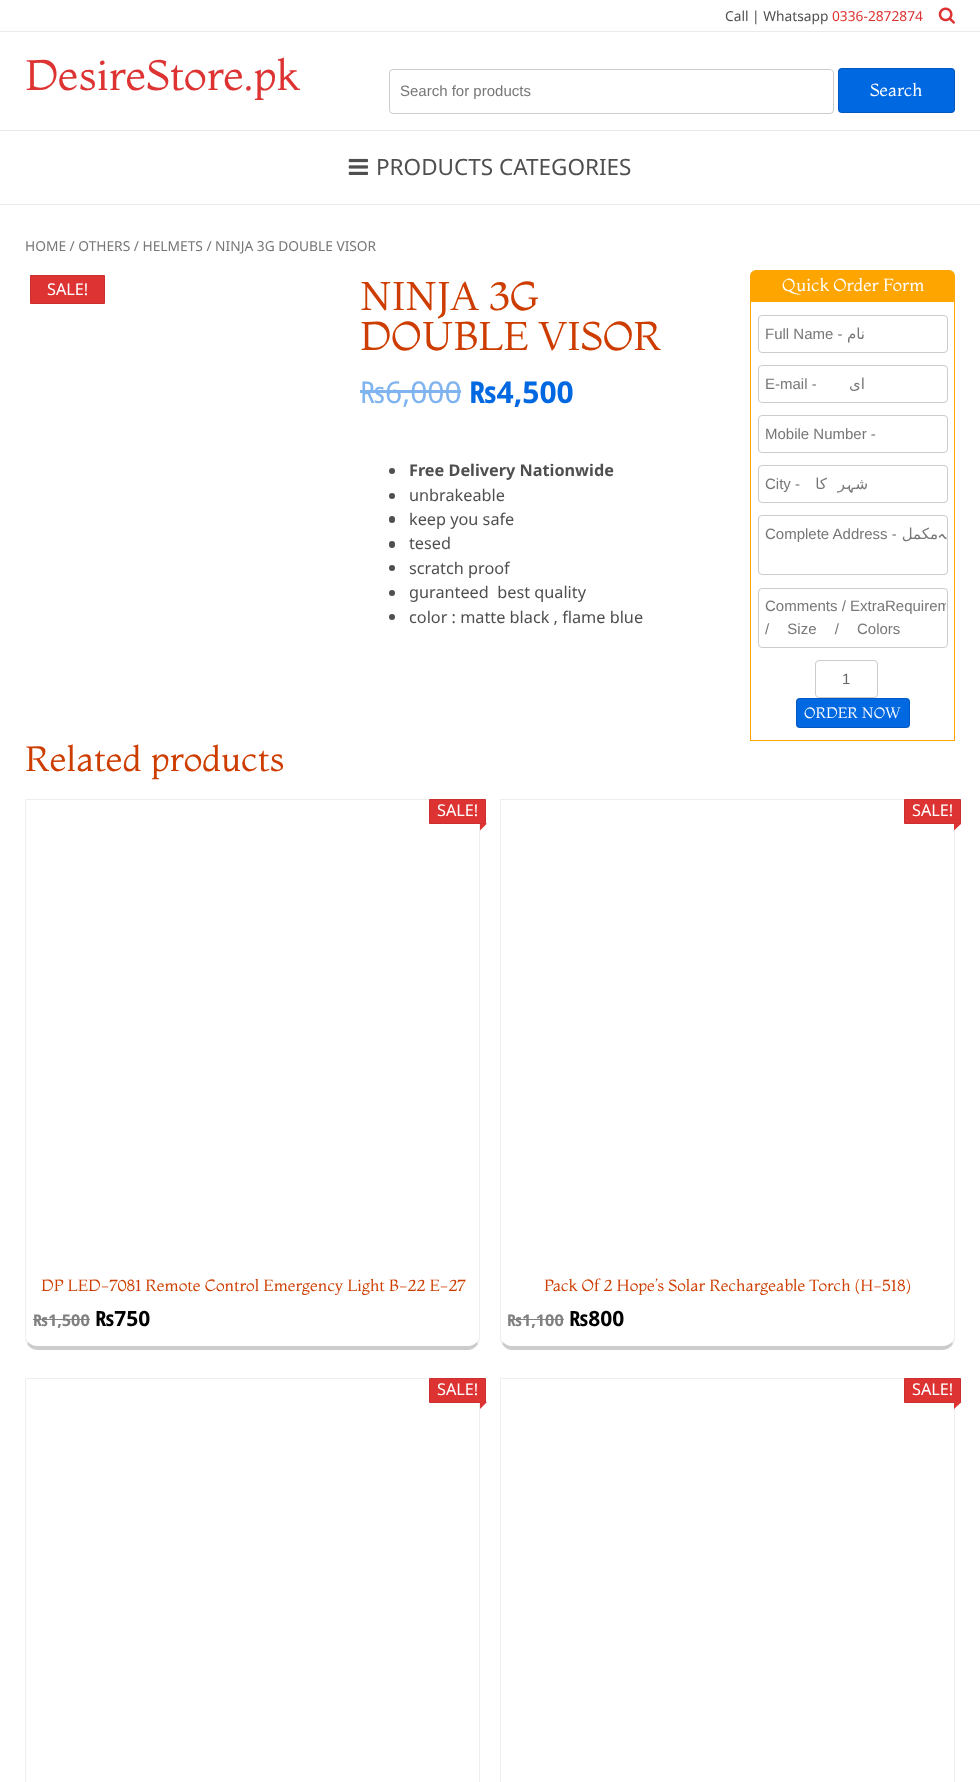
async function draw(canvas) {
  canvas.width = 980
  canvas.height = 1782
  const ctx = canvas.getContext('2d')
  ctx.miterLimit = 4
  ctx.fontKerning = 'normal'
  async function loadImage(src) {
    const img = new Image()
    img.src = src
    await img.decode()
    return img
  }

  ctx.fillStyle = '#fff'
  ctx.fillRect(0, 0, 980, 1782)
  ctx.fillStyle = '#ebebeb'
  ctx.fillRect(0, 204, 980, 1)
  ctx.fillRect(0, 31, 980, 1)
  ctx.font = '13.75px Noto Sans'
  ctx.fillStyle = '#4f4f4f'
  ctx.fillText('Call | Whatsapp', 725, 21)
  ctx.fillStyle = '#d33'
  ctx.fillText('0336-2872874', 832, 21)
  ctx.drawImage(await loadImage('image0.png'), 938, 7, 17, 17)
  ctx.font = '42.5px Montaga'
  ctx.fillText('DesireStore.pk', 25, 90)
  ctx.beginPath()
  ctx.roundRect(389.5, 69.5, 444, 44, 3.5)
  ctx.strokeStyle = '#ccc'
  ctx.stroke()
  ctx.font = '15px Liberation Sans'
  ctx.fillStyle = '#777'
  ctx.fillText('Search for products', 400, 96)
  ctx.fillStyle = '#0068e0'
  ctx.beginPath()
  ctx.roundRect(838, 68, 117, 45, 4)
  ctx.fill()
  ctx.beginPath()
  ctx.roundRect(838.5, 68.5, 116, 44, 3.5)
  ctx.strokeStyle = '#00000024'
  ctx.stroke()
  ctx.font = '17.5px Montaga'
  ctx.fillStyle = '#fff'
  ctx.fillText('Search', 870, 96)
  ctx.fillStyle = '#ebebeb'
  ctx.fillRect(0, 130, 980, 1)
  ctx.drawImage(await loadImage('image1.png'), 348, 158, 21, 17)
  ctx.font = '22.5px Noto Sans'
  ctx.fillStyle = '#4f4f4f'
  ctx.fillText('PRODUCTS CATEGORIES', 376, 175)
  ctx.font = '13.75px Noto Sans'
  ctx.fillStyle = '#777'
  ctx.fillText('HOME / OTHERS / HELMETS / NINJA 3G DOUBLE VISOR', 25, 251)
  ctx.fillStyle = '#d33'
  ctx.beginPath()
  ctx.rect(30.5, 275.5, 74, 28)
  ctx.fill()
  ctx.strokeStyle = '#cb2f2f'
  ctx.stroke()
  ctx.font = '16.25px Noto Sans'
  ctx.fillStyle = '#fff'
  ctx.fillText('SALE!', 47, 295)
  ctx.font = '40px Montaga'
  ctx.fillStyle = '#ce3d00'
  ctx.fillText('NINJA 3G', 360, 310)
  ctx.fillText('DOUBLE VISOR', 360, 350)
  ctx.font = '30px Noto Sans'
  ctx.fillStyle = '#80b4f0'
  ctx.fillText('₨6,000', 360, 403)
  ctx.fillRect(360, 390, 101, 3)
  ctx.font = 'bold 30px Noto Sans'
  ctx.fillStyle = '#0068e0'
  ctx.fillText('₨4,500', 469, 403)
  ctx.fillStyle = '#4f4f4f'
  ctx.beginPath()
  ctx.arc(392, 471, 3, 0, 2 * Math.PI)
  ctx.fill()
  ctx.font = 'bold 16.25px Noto Sans'
  ctx.fillText('Free Delivery Nationwide', 409, 476)
  ctx.beginPath()
  ctx.arc(392, 496, 3, 0, 2 * Math.PI)
  ctx.fill()
  ctx.font = '16.25px Noto Sans'
  ctx.fillText('unbrakeable', 409, 501)
  ctx.beginPath()
  ctx.roundRect(389, 516, 6, 7, 3)
  ctx.fill()
  ctx.fillText('keep you safe', 409, 525)
  ctx.beginPath()
  ctx.roundRect(389, 541, 6, 7, 3)
  ctx.fill()
  ctx.fillText('tesed', 409, 549)
  ctx.beginPath()
  ctx.arc(392, 568, 3, 0, 2 * Math.PI)
  ctx.fill()
  ctx.fillText('scratch proof', 409, 574)
  ctx.beginPath()
  ctx.arc(392, 593, 3, 0, 2 * Math.PI)
  ctx.fill()
  ctx.fillText('guranteed  best quality', 409, 598)
  ctx.beginPath()
  ctx.arc(392, 617, 3, 0, 2 * Math.PI)
  ctx.fill()
  ctx.fillText('color : matte black , flame blue', 409, 623)
  ctx.fillStyle = '#ffa500'
  ctx.beginPath()
  ctx.roundRect(750, 270, 205, 31, [6, 6, 0, 0])
  ctx.fill()
  ctx.font = '17.5px Montaga'
  ctx.fillStyle = '#fff'
  ctx.fillText('Quick Order Form', 782, 291)
  ctx.strokeStyle = '#ffa500'
  ctx.strokeRect(750.5, 301.5, 204, 439)
  ctx.beginPath()
  ctx.roundRect(758.5, 315.5, 189, 37, 3.5)
  ctx.strokeStyle = '#ccc'
  ctx.stroke()
  ctx.font = '15px Liberation Sans'
  ctx.fillStyle = '#777'
  ctx.fillText('Full Name -', 765, 339)
  ctx.direction = 'rtl'
  ctx.font = '15px DejaVu Sans'
  ctx.fillText('نام', 865, 339)
  ctx.beginPath()
  ctx.roundRect(758.5, 365.5, 189, 37, 3.5)
  ctx.stroke()
  ctx.direction = 'ltr'
  ctx.font = '15px Liberation Sans'
  ctx.fillText('E-mail -', 765, 389)
  ctx.direction = 'rtl'
  ctx.font = '15px DejaVu Sans'
  ctx.fillText('ای', 865, 389)
  ctx.beginPath()
  ctx.roundRect(758.5, 415.5, 189, 37, 3.5)
  ctx.stroke()
  ctx.direction = 'ltr'
  ctx.font = '15px Liberation Sans'
  ctx.fillText('Mobile Number -', 765, 439)
  ctx.beginPath()
  ctx.roundRect(758.5, 465.5, 189, 37, 3.5)
  ctx.stroke()
  ctx.fillText('City -', 765, 489)
  ctx.wordSpacing = '6px'
  ctx.direction = 'rtl'
  ctx.font = '15px DejaVu Sans'
  ctx.fillText('‍ر کا', 846, 489)
  ctx.wordSpacing = '0px'
  ctx.font = '15px Cascadia Code'
  ctx.fillText('‍ہ‍', 855, 489)
  ctx.font = '15px DejaVu Sans'
  ctx.fillText('ش‍', 868, 489)
  ctx.beginPath()
  ctx.roundRect(758.5, 515.5, 189, 59, 3.5)
  ctx.stroke()
  ctx.direction = 'ltr'
  ctx.font = '15px Liberation Sans'
  ctx.fillText('Complete Address -', 765, 539)
  ctx.direction = 'rtl'
  ctx.font = '15px DejaVu Sans'
  ctx.fillText('مکمل', 938, 539)
  ctx.font = '15px Cascadia Code'
  ctx.fillText('‍ہ', 946, 539)
  ctx.beginPath()
  ctx.roundRect(758.5, 588.5, 189, 59, 3.5)
  ctx.stroke()
  ctx.direction = 'ltr'
  ctx.font = '15px Liberation Sans'
  ctx.fillText('Comments / Extra', 765, 611)
  ctx.save()
  ctx.beginPath()
  ctx.roundRect(759, 589, 187, 57, 2.5)
  ctx.clip()
  ctx.fillText('Requirem', 885, 611)
  ctx.restore()
  ctx.wordSpacing = '14px'
  ctx.fillText('/ Size / Colors', 765, 634)
  ctx.beginPath()
  ctx.roundRect(815.5, 660.5, 62, 37, 3.5)
  ctx.stroke()
  ctx.wordSpacing = '0px'
  ctx.fillStyle = '#666'
  ctx.fillText('1', 842, 684)
  ctx.fillStyle = '#0068e0'
  ctx.beginPath()
  ctx.roundRect(796, 698, 114, 30, 4)
  ctx.fill()
  ctx.beginPath()
  ctx.roundRect(796.5, 698.5, 113, 29, 3.5)
  ctx.strokeStyle = '#00000024'
  ctx.stroke()
  ctx.font = '15px Montaga'
  ctx.fillStyle = '#fff'
  ctx.fillText('ORDER NOW', 804, 718)
  ctx.font = '35px Montaga'
  ctx.fillStyle = '#ce3d00'
  ctx.fillText('Related products', 25, 771)
  ctx.fillStyle = '#eee'
  ctx.beginPath()
  ctx.moveTo(480, 799)
  ctx.lineTo(25, 799)
  ctx.lineTo(26, 800)
  ctx.lineTo(479, 800)
  ctx.closePath()
  ctx.fill()
  ctx.beginPath()
  ctx.moveTo(480, 1338)
  ctx.lineTo(480, 799)
  ctx.lineTo(479, 800)
  ctx.lineTo(479, 1338)
  ctx.bezierCurveTo(479, 1339, 478, 1341, 477, 1342)
  ctx.lineTo(478, 1344)
  ctx.bezierCurveTo(479, 1342, 480, 1340, 480, 1338)
  ctx.closePath()
  ctx.fill()
  ctx.fillStyle = '#ccc'
  ctx.beginPath()
  ctx.moveTo(38, 1350)
  ctx.lineTo(468, 1350)
  ctx.bezierCurveTo(472, 1350, 476, 1347, 478, 1344)
  ctx.lineTo(477, 1342)
  ctx.bezierCurveTo(475, 1344, 472, 1346, 468, 1346)
  ctx.lineTo(38, 1346)
  ctx.bezierCurveTo(33, 1346, 30, 1344, 28, 1342)
  ctx.lineTo(27, 1344)
  ctx.bezierCurveTo(29, 1347, 33, 1350, 38, 1350)
  ctx.closePath()
  ctx.fill()
  ctx.fillStyle = '#eee'
  ctx.beginPath()
  ctx.moveTo(26, 800)
  ctx.lineTo(26, 1339)
  ctx.lineTo(28, 1342)
  ctx.lineTo(27, 1344)
  ctx.bezierCurveTo(26, 1342, 25, 1340, 25, 1338)
  ctx.lineTo(25, 799)
  ctx.closePath()
  ctx.fill()
  ctx.fillStyle = '#d33'
  ctx.beginPath()
  ctx.rect(429.5, 799.5, 56, 24)
  ctx.fill()
  ctx.strokeStyle = '#cb2f2f'
  ctx.stroke()
  ctx.font = '16.25px Noto Sans'
  ctx.fillStyle = '#fff'
  ctx.fillText('SALE!', 437, 816)
  ctx.fillStyle = '#d33'
  ctx.beginPath()
  ctx.moveTo(487, 823.5)
  ctx.lineTo(480, 830.5)
  ctx.lineTo(480, 823.5)
  ctx.closePath()
  ctx.fill()
  ctx.font = '16.25px Montaga'
  ctx.fillStyle = '#ce3d00'
  ctx.fillText('DP LED-7081 Remote Control Emergency Light B-22 E-27', 41, 1291)
  ctx.font = 'bold 16.25px Noto Sans'
  ctx.fillStyle = '#808080'
  ctx.fillText('₨1,500', 33, 1326)
  ctx.fillRect(33, 1319, 57, 1)
  ctx.font = 'bold 21px Noto Sans'
  ctx.fillStyle = '#000'
  ctx.fillText('₨750', 95, 1326)
  ctx.fillStyle = '#eee'
  ctx.beginPath()
  ctx.moveTo(955, 799)
  ctx.lineTo(500, 799)
  ctx.lineTo(501, 800)
  ctx.lineTo(954, 800)
  ctx.closePath()
  ctx.fill()
  ctx.beginPath()
  ctx.moveTo(955, 1338)
  ctx.lineTo(955, 799)
  ctx.lineTo(954, 800)
  ctx.lineTo(954, 1339)
  ctx.lineTo(952, 1342)
  ctx.lineTo(953, 1344)
  ctx.bezierCurveTo(954, 1342, 955, 1340, 955, 1338)
  ctx.closePath()
  ctx.fill()
  ctx.fillStyle = '#ccc'
  ctx.beginPath()
  ctx.moveTo(512, 1350)
  ctx.lineTo(942, 1350)
  ctx.bezierCurveTo(947, 1350, 951, 1347, 953, 1344)
  ctx.lineTo(952, 1342)
  ctx.bezierCurveTo(950, 1344, 947, 1346, 942, 1346)
  ctx.lineTo(512, 1346)
  ctx.bezierCurveTo(508, 1346, 505, 1344, 503, 1342)
  ctx.lineTo(502, 1344)
  ctx.bezierCurveTo(504, 1347, 508, 1350, 512, 1350)
  ctx.closePath()
  ctx.fill()
  ctx.fillStyle = '#eee'
  ctx.beginPath()
  ctx.moveTo(501, 800)
  ctx.lineTo(501, 1338)
  ctx.bezierCurveTo(501, 1339, 502, 1341, 503, 1342)
  ctx.lineTo(502, 1344)
  ctx.bezierCurveTo(501, 1342, 500, 1340, 500, 1338)
  ctx.lineTo(500, 799)
  ctx.closePath()
  ctx.fill()
  ctx.fillStyle = '#d33'
  ctx.beginPath()
  ctx.rect(904.5, 799.5, 56, 24)
  ctx.fill()
  ctx.stroke()
  ctx.font = '16.25px Noto Sans'
  ctx.fillStyle = '#fff'
  ctx.fillText('SALE!', 912, 816)
  ctx.fillStyle = '#d33'
  ctx.beginPath()
  ctx.moveTo(961.5, 823.5)
  ctx.lineTo(954, 830.5)
  ctx.lineTo(954, 823.5)
  ctx.closePath()
  ctx.fill()
  ctx.font = '16.25px Montaga'
  ctx.fillStyle = '#ce3d00'
  ctx.fillText('Pack Of 2 Hope’s Solar Rechargeable Torch (H-518)', 544, 1291)
  ctx.font = 'bold 16.25px Noto Sans'
  ctx.fillStyle = '#808080'
  ctx.fillText('₨1,100', 507, 1326)
  ctx.fillRect(508, 1319, 56, 1)
  ctx.font = 'bold 21px Noto Sans'
  ctx.fillStyle = '#000'
  ctx.fillText('₨800', 569, 1326)
  ctx.fillStyle = '#eee'
  ctx.beginPath()
  ctx.moveTo(480, 1378)
  ctx.lineTo(26, 1378)
  ctx.lineTo(26, 1379)
  ctx.lineTo(478, 1379)
  ctx.closePath()
  ctx.fill()
  ctx.beginPath()
  ctx.moveTo(480, 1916)
  ctx.lineTo(480, 1378)
  ctx.lineTo(478, 1379)
  ctx.lineTo(479, 1379)
  ctx.lineTo(479, 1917)
  ctx.lineTo(477, 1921)
  ctx.lineTo(478, 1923)
  ctx.bezierCurveTo(479, 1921, 480, 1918, 480, 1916)
  ctx.closePath()
  ctx.fill()
  ctx.beginPath()
  ctx.moveTo(26, 1379)
  ctx.lineTo(26, 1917)
  ctx.lineTo(28, 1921)
  ctx.lineTo(27, 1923)
  ctx.bezierCurveTo(26, 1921, 25, 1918, 25, 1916)
  ctx.lineTo(25, 1378)
  ctx.closePath()
  ctx.fill()
  ctx.fillStyle = '#d33'
  ctx.beginPath()
  ctx.rect(429.5, 1378.5, 56, 24)
  ctx.fill()
  ctx.stroke()
  ctx.font = '16.25px Noto Sans'
  ctx.fillStyle = '#fff'
  ctx.fillText('SALE!', 437, 1395)
  ctx.fillStyle = '#d33'
  ctx.beginPath()
  ctx.moveTo(487, 1402)
  ctx.lineTo(480, 1409)
  ctx.lineTo(480, 1402)
  ctx.closePath()
  ctx.fill()
  ctx.fillStyle = '#eee'
  ctx.beginPath()
  ctx.moveTo(954, 1378)
  ctx.lineTo(500, 1378)
  ctx.lineTo(502, 1379)
  ctx.lineTo(954, 1379)
  ctx.closePath()
  ctx.fill()
  ctx.beginPath()
  ctx.moveTo(955, 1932)
  ctx.lineTo(955, 1378)
  ctx.lineTo(954, 1378)
  ctx.lineTo(954, 1379)
  ctx.lineTo(954, 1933)
  ctx.lineTo(952, 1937)
  ctx.lineTo(953, 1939)
  ctx.bezierCurveTo(954, 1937, 955, 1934, 955, 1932)
  ctx.closePath()
  ctx.fill()
  ctx.beginPath()
  ctx.moveTo(501, 1379)
  ctx.lineTo(501, 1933)
  ctx.lineTo(503, 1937)
  ctx.lineTo(502, 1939)
  ctx.bezierCurveTo(501, 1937, 500, 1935, 500, 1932)
  ctx.lineTo(500, 1378)
  ctx.lineTo(502, 1379)
  ctx.closePath()
  ctx.fill()
  ctx.fillStyle = '#d33'
  ctx.beginPath()
  ctx.rect(904.5, 1378.5, 56, 24)
  ctx.fill()
  ctx.stroke()
  ctx.fillStyle = '#fff'
  ctx.fillText('SALE!', 912, 1395)
  ctx.fillStyle = '#d33'
  ctx.beginPath()
  ctx.moveTo(961.5, 1402)
  ctx.lineTo(954, 1409)
  ctx.lineTo(954, 1402)
  ctx.closePath()
  ctx.fill()
}

draw(document.querySelector('canvas'))
